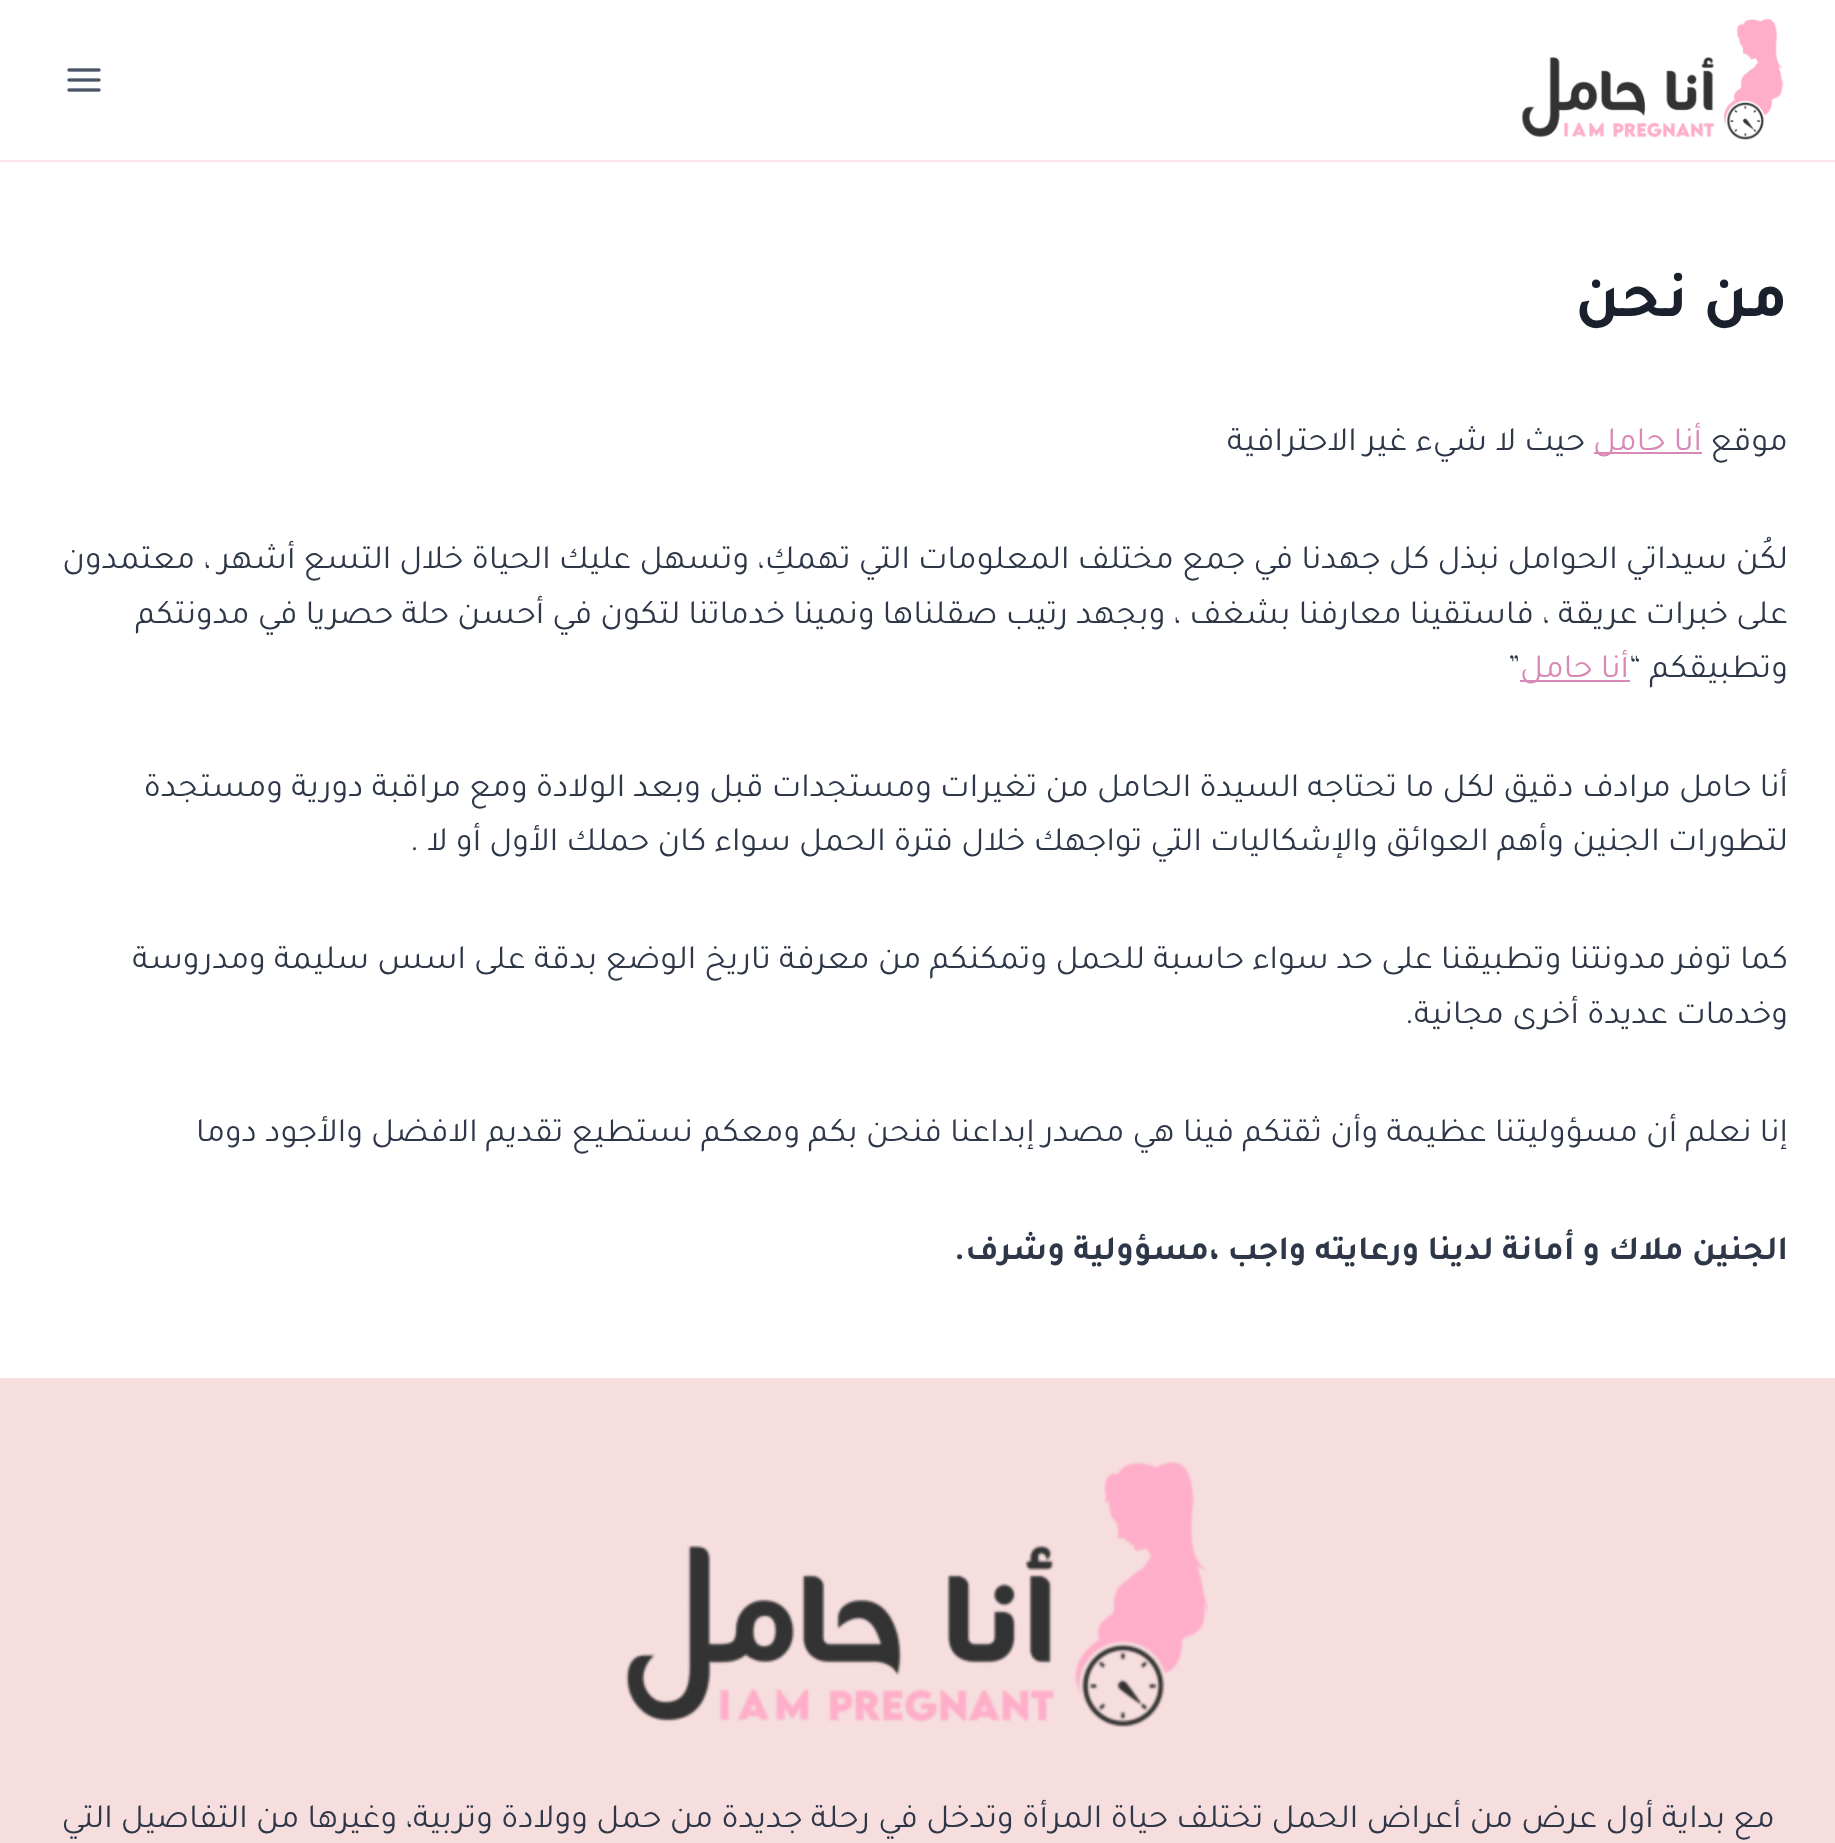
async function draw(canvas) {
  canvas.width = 1835
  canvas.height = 1843
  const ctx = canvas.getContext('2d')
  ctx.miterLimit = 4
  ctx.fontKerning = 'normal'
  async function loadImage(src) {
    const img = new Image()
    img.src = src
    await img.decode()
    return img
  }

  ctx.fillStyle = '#fff'
  ctx.fillRect(0, 0, 1835, 1843)
  ctx.fillStyle = '#fde5eb'
  ctx.fillRect(0, 160, 1835, 2)
  ctx.drawImage(await loadImage('image0.png'), 1521, 18, 263, 122)
  ctx.drawImage(await loadImage('image1.png'), 67, 68, 34, 24)
  ctx.direction = 'rtl'
  ctx.font = 'bold 64px Tajawal'
  ctx.fillStyle = '#1a202c'
  ctx.fillText('من نحن', 1788, 316)
  ctx.font = '34px Tajawal'
  ctx.fillStyle = '#2d3748'
  ctx.fillText('موقع', 1788, 450)
  ctx.fillStyle = '#d989b5'
  ctx.fillRect(1594, 452, 108, 2)
  ctx.fillText('أنا حامل', 1702, 450)
  ctx.fillStyle = '#2d3748'
  ctx.fillText('حيث لا شيء غير الاحترافية', 1585, 450)
  ctx.fillText('لكُن سيداتي الحوامل نبذل كل جهدنا في جمع مختلف المعلومات التي تهمكِ، وتسهل عليك الحياة خلال التسع أشهر ، معتمدون', 1788, 568)
  ctx.fillText('على خبرات عريقة ، فاستقينا معارفنا بشغف ، وبجهد رتيب صقلناها ونمينا خدماتنا لتكون في أحسن حلة حصريا في مدونتكم', 1788, 623)
  ctx.fillText('وتطبيقكم “', 1788, 677)
  ctx.fillStyle = '#d989b5'
  ctx.fillRect(1520, 680, 110, 2)
  ctx.fillText('أنا حامل', 1629, 677)
  ctx.direction = 'ltr'
  ctx.fillStyle = '#2d3748'
  ctx.fillText('”', 1508, 677)
  ctx.direction = 'rtl'
  ctx.fillText('أنا حامل مرادف دقيق لكل ما تحتاجه السيدة الحامل من تغيرات ومستجدات قبل وبعد الولادة ومع مراقبة دورية ومستجدة', 1788, 796)
  ctx.fillText('لتطورات الجنين وأهم العوائق والإشكاليات التي تواجهك خلال فترة الحمل سواء كان حملك الأول أو لا .', 1788, 850)
  ctx.fillText('كما توفر مدونتنا وتطبيقنا على حد سواء حاسبة للحمل وتمكنكم من معرفة تاريخ الوضع بدقة على اسس سليمة ومدروسة', 1788, 968)
  ctx.fillText('وخدمات عديدة أخرى مجانية.', 1788, 1023)
  ctx.fillText('إنا نعلم أن مسؤوليتنا عظيمة وأن ثقتكم فينا هي مصدر إبداعنا فنحن بكم ومعكم نستطيع تقديم الافضل والأجود دوما', 1788, 1141)
  ctx.font = 'bold 34px Tajawal'
  ctx.fillText('الجنين ملاك و أمانة لدينا ورعايته واجب ،مسؤولية وشرف', 1788, 1259)
  ctx.direction = 'ltr'
  ctx.fillText('.', 954, 1259)
  ctx.fillStyle = '#f7dede'
  ctx.fillRect(0, 1378, 1835, 465)
  ctx.drawImage(await loadImage('image2.png'), 625, 1461, 584, 267)
  ctx.direction = 'rtl'
  ctx.font = '34px Tajawal'
  ctx.fillStyle = '#2d3748'
  ctx.fillText('مع بداية أول عرض من أعراض الحمل تختلف حياة المرأة وتدخل في رحلة جديدة من حمل وولادة وتربية، وغيرها من التفاصيل التي', 1775, 1827)
}

draw(document.querySelector('canvas'))
